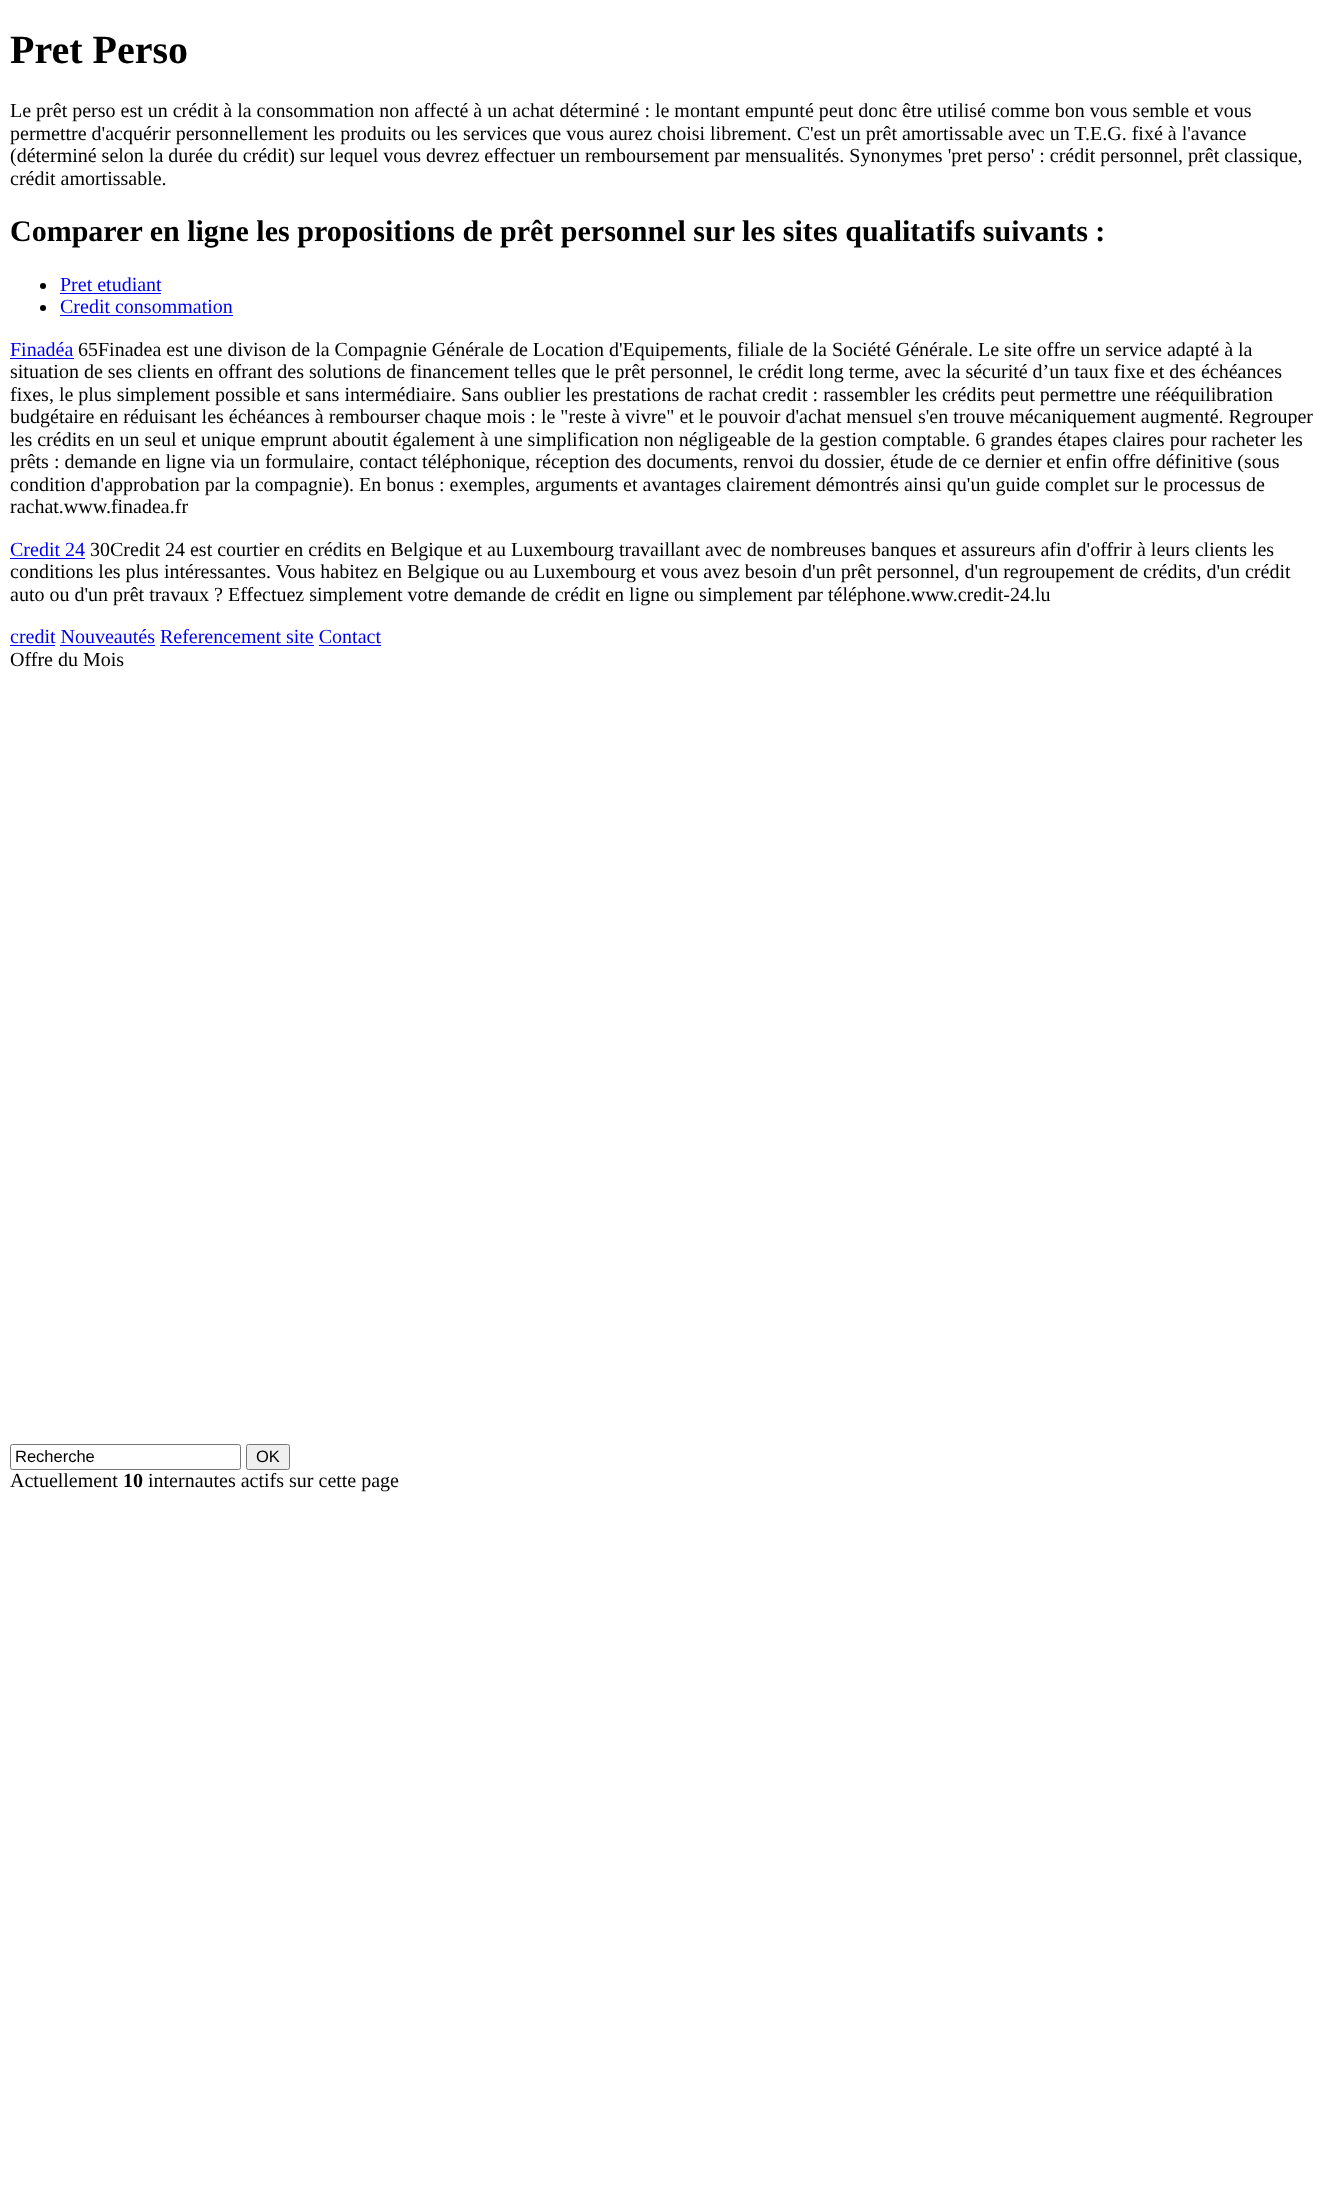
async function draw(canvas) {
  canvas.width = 1331
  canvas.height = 2193
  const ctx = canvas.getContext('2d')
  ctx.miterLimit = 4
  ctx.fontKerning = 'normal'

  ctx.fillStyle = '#fff'
  ctx.fillRect(0, 0, 1331, 2193)
  ctx.font = 'bold 40px Liberation Serif'
  ctx.fillStyle = '#000'
  ctx.fillText('Pret Perso', 10, 63)
  ctx.font = '20px Liberation Serif'
  ctx.fillText('Le prêt perso est un crédit à la consommation non affecté à un achat déterminé : le montant empunté peut donc être utilisé comme bon vous semble et vous', 10, 117)
  ctx.fillText('permettre d\'acquérir personnellement les produits ou les services que vous aurez choisi librement. C\'est un prêt amortissable avec un T.E.G. fixé à l\'avance', 10, 140)
  ctx.fillText('(déterminé selon la durée du crédit) sur lequel vous devrez effectuer un remboursement par mensualités. Synonymes \'pret perso\' : crédit personnel, prêt classique,', 10, 162)
  ctx.fillText('crédit amortissable.', 10, 185)
  ctx.font = 'bold 30px Liberation Serif'
  ctx.fillText('Comparer en ligne les propositions de prêt personnel sur les sites qualitatifs suivants :', 10, 241)
  ctx.beginPath()
  ctx.arc(43, 286, 3, 0, 2 * Math.PI)
  ctx.fill()
  ctx.font = '20px Liberation Serif'
  ctx.fillStyle = '#00e'
  ctx.fillText('Pret etudiant', 60, 291)
  ctx.fillRect(60, 293, 101, 1)
  ctx.fillStyle = '#000'
  ctx.beginPath()
  ctx.arc(43, 308, 3, 0, 2 * Math.PI)
  ctx.fill()
  ctx.fillStyle = '#00e'
  ctx.fillText('Credit consommation', 60, 313)
  ctx.fillRect(60, 315, 173, 1)
  ctx.fillText('Finadéa', 10, 356)
  ctx.fillRect(10, 358, 64, 1)
  ctx.fillStyle = '#000'
  ctx.fillText('65Finadea est une divison de la Compagnie Générale de Location d\'Equipements, filiale de la Société Générale. Le site offre un service adapté à la', 78, 356)
  ctx.fillText('situation de ses clients en offrant des solutions de financement telles que le prêt personnel, le crédit long terme, avec la sécurité d’un taux fixe et des échéances', 10, 378)
  ctx.fillText('fixes, le plus simplement possible et sans intermédiaire. Sans oublier les prestations de rachat credit : rassembler les crédits peut permettre une rééquilibration', 10, 401)
  ctx.fillText('budgétaire en réduisant les échéances à rembourser chaque mois : le "reste à vivre" et le pouvoir d\'achat mensuel s\'en trouve mécaniquement augmenté. Regrouper', 10, 423)
  ctx.fillText('les crédits en un seul et unique emprunt aboutit également à une simplification non négligeable de la gestion comptable. 6 grandes étapes claires pour racheter les', 10, 446)
  ctx.fillText('prêts : demande en ligne via un formulaire, contact téléphonique, réception des documents, renvoi du dossier, étude de ce dernier et enfin offre définitive (sous', 10, 468)
  ctx.fillText('condition d\'approbation par la compagnie). En bonus : exemples, arguments et avantages clairement démontrés ainsi qu\'un guide complet sur le processus de', 10, 491)
  ctx.fillText('rachat.www.finadea.fr', 10, 513)
  ctx.fillStyle = '#00e'
  ctx.fillText('Credit 24', 10, 556)
  ctx.fillRect(10, 558, 75, 1)
  ctx.fillStyle = '#000'
  ctx.fillText('30Credit 24 est courtier en crédits en Belgique et au Luxembourg travaillant avec de nombreuses banques et assureurs afin d\'offrir à leurs clients les', 90, 556)
  ctx.fillText('conditions les plus intéressantes. Vous habitez en Belgique ou au Luxembourg et vous avez besoin d\'un prêt personnel, d\'un regroupement de crédits, d\'un crédit', 10, 578)
  ctx.fillText('auto ou d\'un prêt travaux ? Effectuez simplement votre demande de crédit en ligne ou simplement par téléphone.www.credit-24.lu', 10, 601)
  ctx.fillStyle = '#00e'
  ctx.fillText('credit Nouveautés Referencement site Contact', 10, 643)
  ctx.fillRect(10, 645, 45, 1)
  ctx.fillRect(60, 645, 95, 1)
  ctx.fillRect(160, 645, 154, 1)
  ctx.fillRect(319, 645, 62, 1)
  ctx.fillStyle = '#000'
  ctx.fillText('Offre du Mois', 10, 666)
  ctx.beginPath()
  ctx.roundRect(10.5, 1444.5, 230, 25, 2)
  ctx.strokeStyle = '#767676'
  ctx.stroke()
  ctx.font = '16.5px Liberation Sans'
  ctx.fillText('Recherche', 15, 1462)
  ctx.fillStyle = '#efefef'
  ctx.beginPath()
  ctx.roundRect(246.5, 1444.5, 43, 25, 2)
  ctx.fill()
  ctx.stroke()
  ctx.fillStyle = '#000'
  ctx.fillText('OK', 256, 1462)
  ctx.font = '20px Liberation Serif'
  ctx.fillText('Actuellement', 10, 1487)
  ctx.font = 'bold 20px Liberation Serif'
  ctx.fillText('10', 123, 1487)
  ctx.font = '20px Liberation Serif'
  ctx.fillText('internautes actifs sur cette page', 148, 1487)
}

draw(document.querySelector('canvas'))
